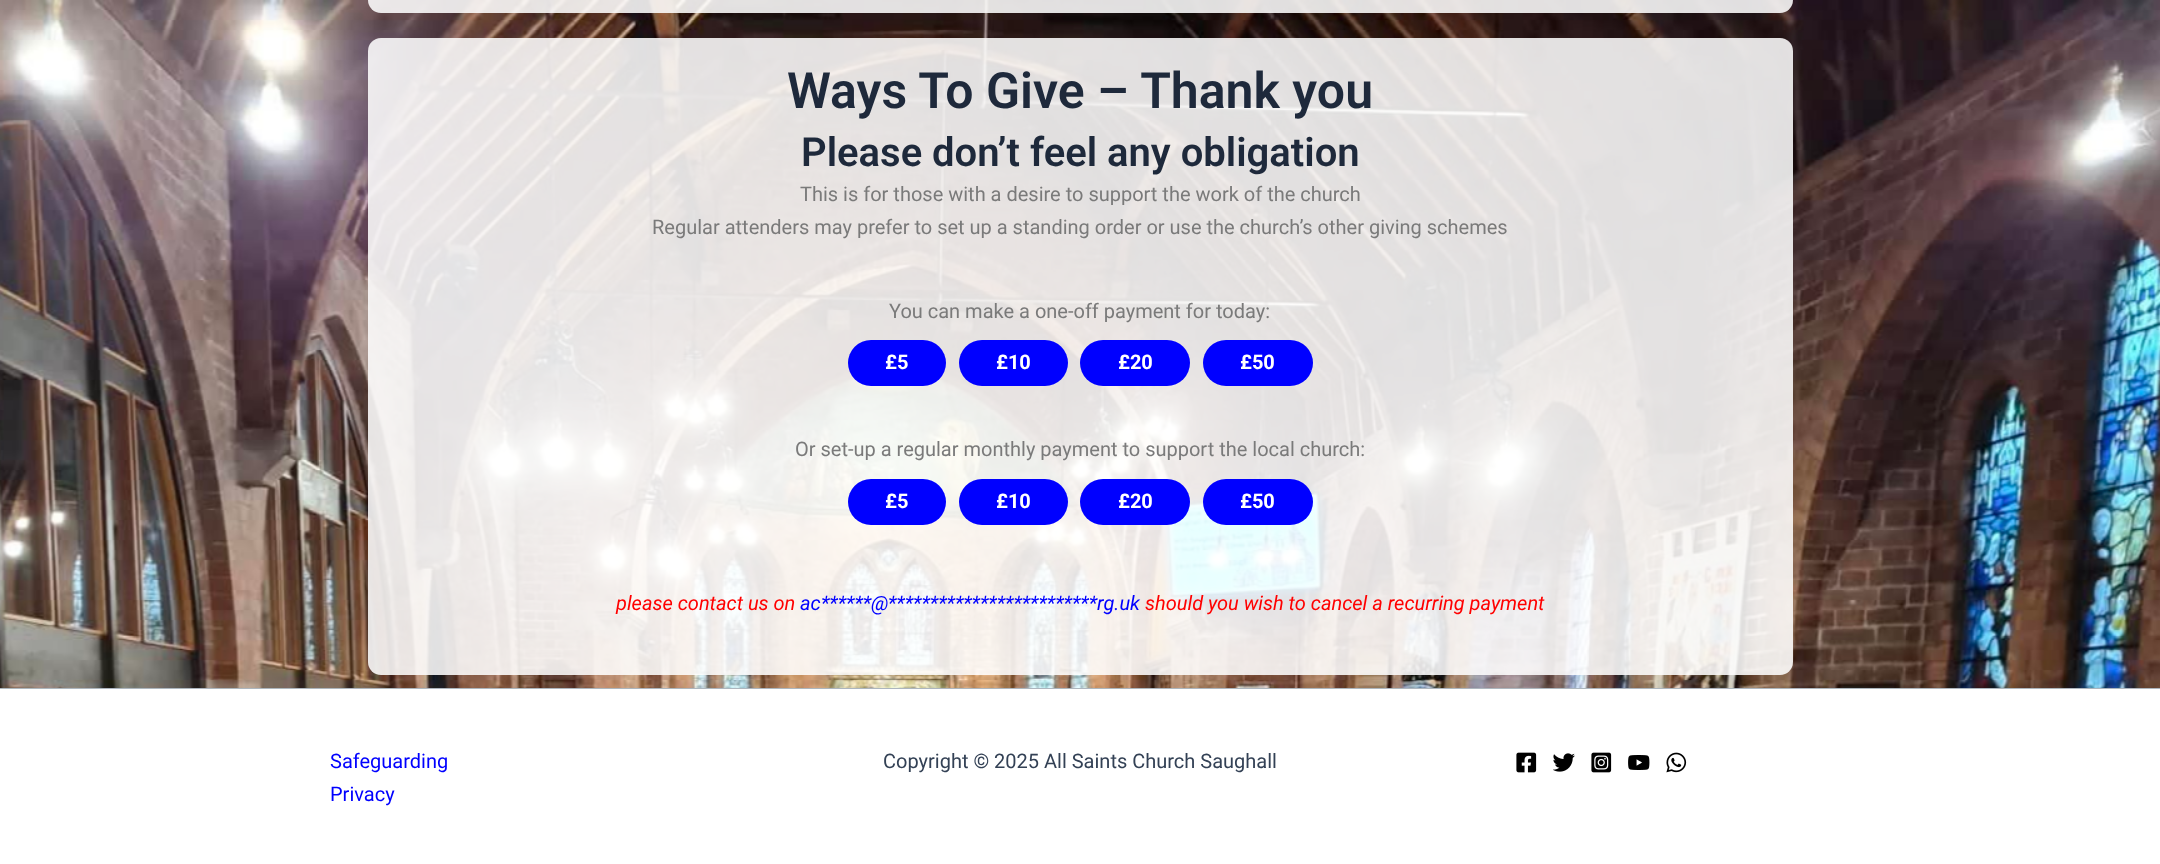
async function draw(canvas) {
  canvas.width = 2160
  canvas.height = 864
  const ctx = canvas.getContext('2d')
  ctx.miterLimit = 4
  ctx.fontKerning = 'normal'
  async function loadImage(src) {
    const img = new Image()
    img.src = src
    await img.decode()
    return img
  }

  ctx.fillStyle = '#fff'
  ctx.fillRect(0, 0, 2160, 864)
  ctx.drawImage(await loadImage('image0.png'), 0, 0, 2160, 688)
  ctx.fillStyle = '#ffffffde'
  ctx.beginPath()
  ctx.roundRect(368, -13, 1425, 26, 13)
  ctx.fill()
  ctx.beginPath()
  ctx.roundRect(368, 38, 1425, 637, 13)
  ctx.fill()
  ctx.font = '600 50px Roboto'
  ctx.fillStyle = '#1e293b'
  ctx.fillText('Ways To Give – Thank you', 787, 108)
  ctx.font = '600 40px Roboto'
  ctx.fillText('Please don’t feel any obligation', 801, 166)
  ctx.font = '20px Roboto'
  ctx.fillStyle = '#7a7a7a'
  ctx.fillText('This is for those with a desire to support the work of the church', 800, 201)
  ctx.fillText('Regular attenders may prefer to set up a standing order or use the church’s other giving schemes', 652, 234)
  ctx.fillText('You can make a one-off payment for today:', 889, 318)
  ctx.fillStyle = '#00f'
  ctx.beginPath()
  ctx.roundRect(848, 340, 98, 46, 23)
  ctx.fill()
  ctx.font = 'bold 20px Roboto'
  ctx.fillStyle = '#fff'
  ctx.fillText('£5', 885, 369)
  ctx.fillStyle = '#00f'
  ctx.beginPath()
  ctx.roundRect(959, 340, 109, 46, 23)
  ctx.fill()
  ctx.fillStyle = '#fff'
  ctx.fillText('£10', 996, 369)
  ctx.fillStyle = '#00f'
  ctx.beginPath()
  ctx.roundRect(1080, 340, 110, 46, 23)
  ctx.fill()
  ctx.fillStyle = '#fff'
  ctx.fillText('£20', 1118, 369)
  ctx.fillStyle = '#00f'
  ctx.beginPath()
  ctx.roundRect(1203, 340, 110, 46, 23)
  ctx.fill()
  ctx.fillStyle = '#fff'
  ctx.fillText('£50', 1240, 369)
  ctx.font = '20px Roboto'
  ctx.fillStyle = '#7a7a7a'
  ctx.fillText('Or set-up a regular monthly payment to support the local church:', 795, 456)
  ctx.fillStyle = '#00f'
  ctx.beginPath()
  ctx.roundRect(848, 479, 98, 46, 23)
  ctx.fill()
  ctx.font = 'bold 20px Roboto'
  ctx.fillStyle = '#fff'
  ctx.fillText('£5', 885, 508)
  ctx.fillStyle = '#00f'
  ctx.beginPath()
  ctx.roundRect(959, 479, 109, 46, 23)
  ctx.fill()
  ctx.fillStyle = '#fff'
  ctx.fillText('£10', 996, 508)
  ctx.fillStyle = '#00f'
  ctx.beginPath()
  ctx.roundRect(1080, 479, 110, 46, 23)
  ctx.fill()
  ctx.fillStyle = '#fff'
  ctx.fillText('£20', 1118, 508)
  ctx.fillStyle = '#00f'
  ctx.beginPath()
  ctx.roundRect(1203, 479, 110, 46, 23)
  ctx.fill()
  ctx.fillStyle = '#fff'
  ctx.fillText('£50', 1240, 508)
  ctx.font = 'italic 20px Roboto'
  ctx.fillStyle = '#f00'
  ctx.fillText('please contact us on', 616, 610)
  ctx.fillStyle = '#00f'
  ctx.fillText('ac', 800, 610)
  ctx.fillText('@', 871, 610)
  ctx.fillText('******', 821, 610)
  ctx.fillText('rg.uk', 1097, 610)
  ctx.fillText('*************************', 888, 610)
  ctx.fillStyle = '#f00'
  ctx.fillText('should you wish to cancel a recurring payment', 1145, 610)
  ctx.fillStyle = '#adb6be'
  ctx.fillRect(0, 688, 2160, 1)
  ctx.font = '20px Roboto'
  ctx.fillStyle = '#00f'
  ctx.fillText('Safeguarding', 330, 768)
  ctx.fillText('Privacy', 330, 801)
  ctx.fillStyle = '#334155'
  ctx.fillText('Copyright © 2025 All Saints Church Saughall', 883, 768)
  ctx.drawImage(await loadImage('image1.png'), 1516, 752, 21, 21)
  ctx.drawImage(await loadImage('image2.png'), 1553, 753, 22, 19)
  ctx.drawImage(await loadImage('image3.png'), 1591, 752, 21, 21)
  ctx.drawImage(await loadImage('image4.png'), 1628, 755, 22, 15)
  ctx.drawImage(await loadImage('image5.png'), 1666, 752, 21, 21)
}

draw(document.querySelector('canvas'))
